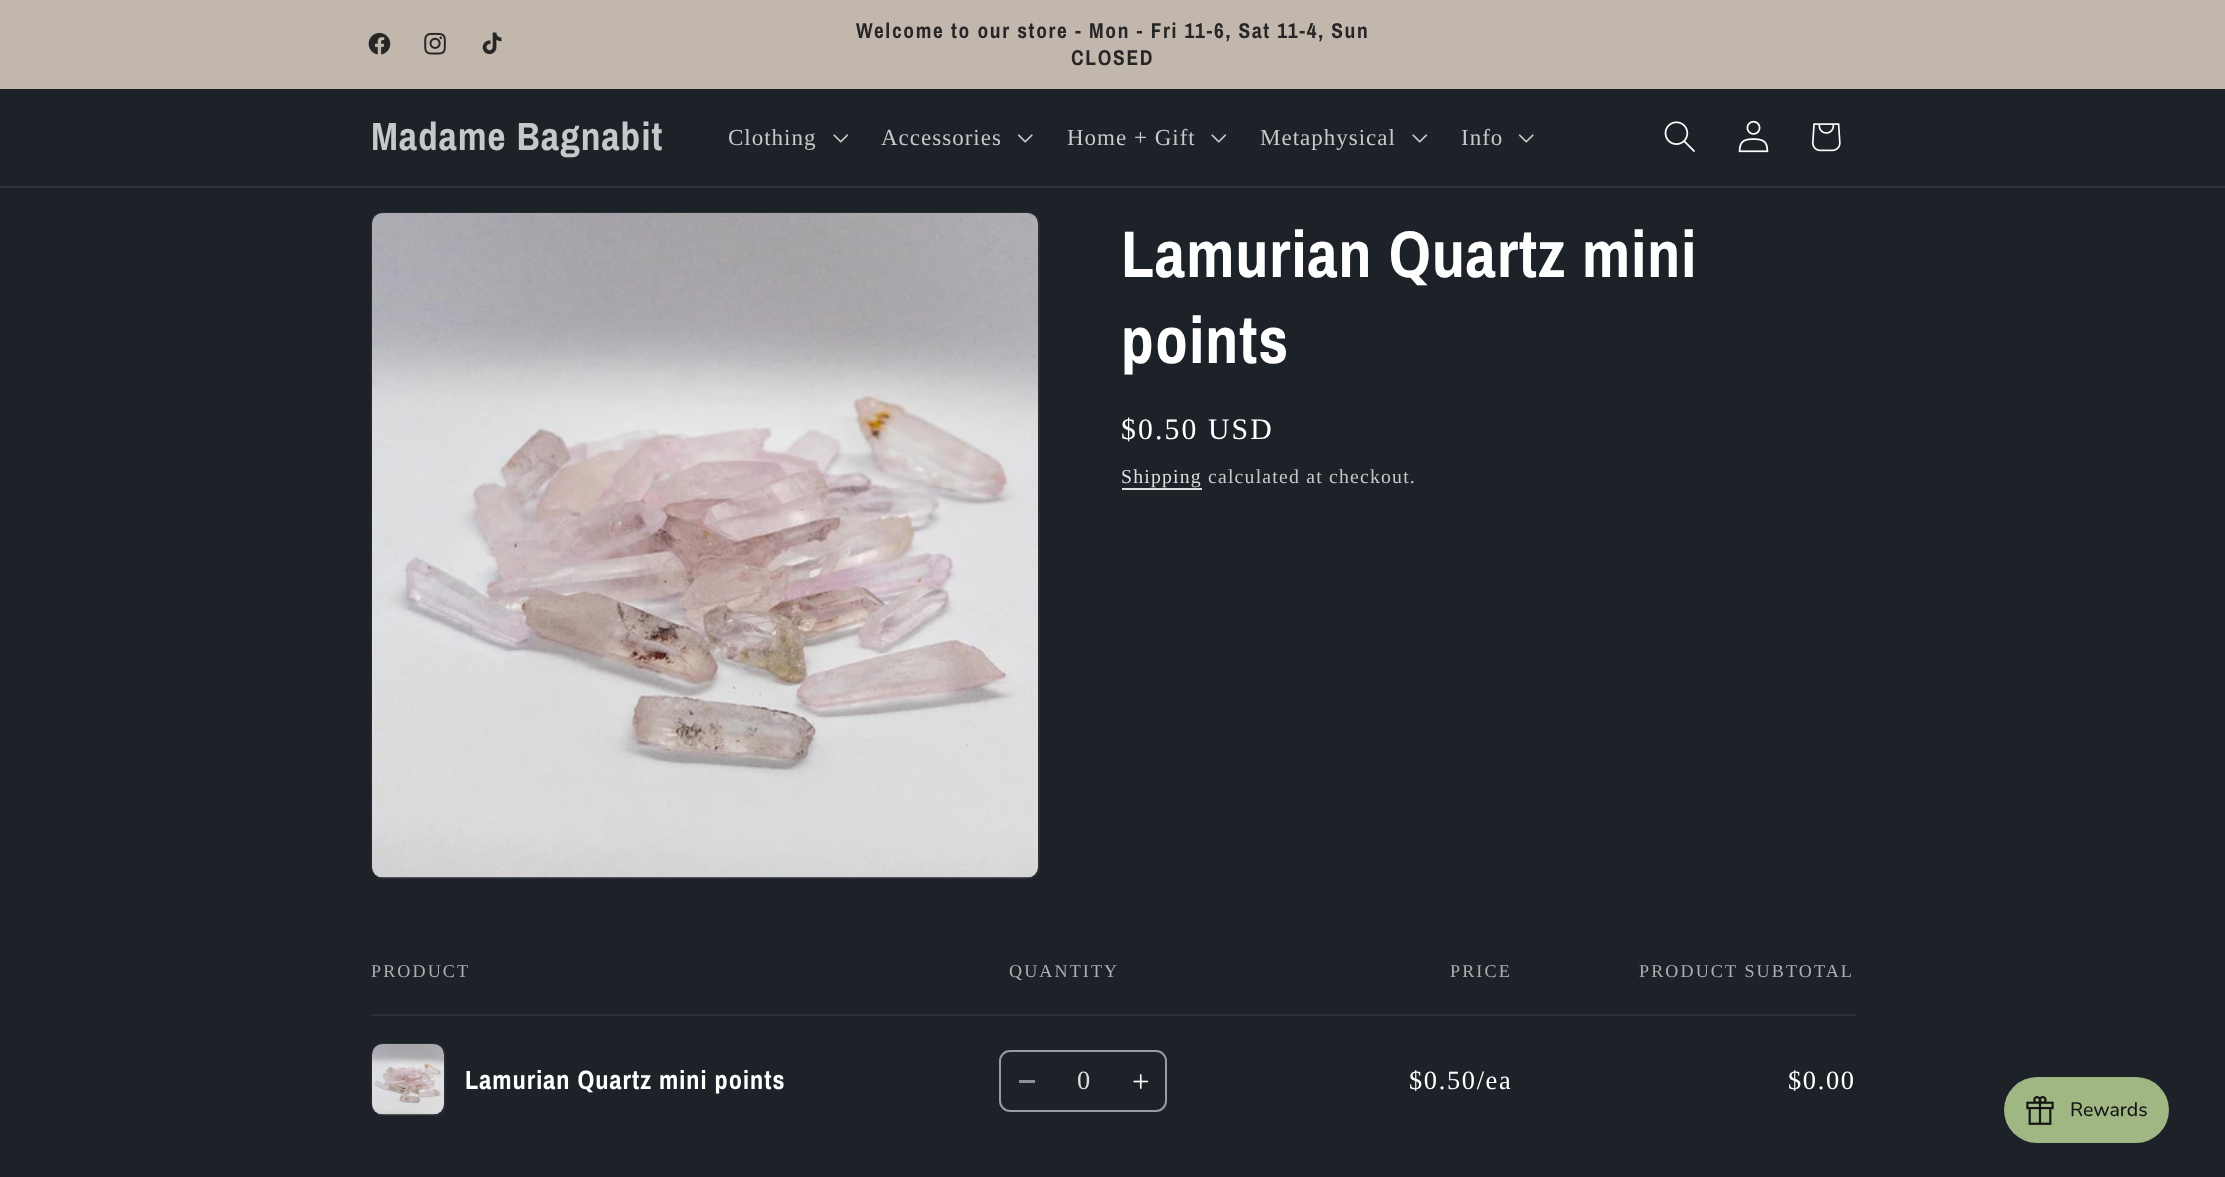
async function draw(canvas) {
  canvas.width = 2225
  canvas.height = 1177
  const ctx = canvas.getContext('2d')
  ctx.miterLimit = 4
  ctx.fontKerning = 'normal'
  async function loadImage(src) {
    const img = new Image()
    img.src = src
    await img.decode()
    return img
  }

  ctx.fillStyle = '#1c2228'
  ctx.fillRect(0, 0, 2225, 1177)
  ctx.fillStyle = '#c2b7ac'
  ctx.fillRect(0, 0, 2225, 89)
  ctx.drawImage(await loadImage('image0.png'), 368, 32, 23, 23)
  ctx.drawImage(await loadImage('image1.png'), 424, 32, 22, 23)
  ctx.drawImage(await loadImage('image2.png'), 482, 32, 20, 23)
  ctx.letterSpacing = '1.65px'
  ctx.font = 'bold 21.45px Archivo Narrow'
  ctx.fillStyle = '#262626'
  ctx.fillText('Welcome to our store - Mon - Fri 11-6, Sat 11-4, Sun', 856, 38)
  ctx.fillText('CLOSED', 1071, 65)
  ctx.fillStyle = '#2e3439'
  ctx.fillRect(0, 186, 2225, 2)
  ctx.letterSpacing = '1px'
  ctx.font = 'bold 39.5px Archivo Narrow'
  ctx.fillStyle = '#c6c8c9'
  ctx.fillText('Madame Bagnabit', 371, 150)
  ctx.font = '23px Liberation Serif'
  ctx.fillText('Clothing', 728, 145)
  ctx.drawImage(await loadImage('image3.png'), 833, 134, 16, 9)
  ctx.fillText('Accessories', 881, 145)
  ctx.drawImage(await loadImage('image4.png'), 1017, 134, 16, 9)
  ctx.fillText('Home + Gift', 1067, 145)
  ctx.drawImage(await loadImage('image3.png'), 1211, 134, 16, 9)
  ctx.fillText('Metaphysical', 1260, 145)
  ctx.drawImage(await loadImage('image3.png'), 1412, 134, 16, 9)
  ctx.fillText('Info', 1461, 145)
  ctx.drawImage(await loadImage('image4.png'), 1518, 134, 16, 9)
  ctx.drawImage(await loadImage('image5.png'), 1664, 121, 31, 31)
  ctx.drawImage(await loadImage('image6.png'), 1738, 120, 31, 33)
  ctx.drawImage(await loadImage('image7.png'), 1812, 123, 29, 29)
  ctx.beginPath()
  ctx.roundRect(372, 213, 667, 665, 11)
  ctx.strokeStyle = '#272d33'
  ctx.lineWidth = 2
  ctx.stroke()
  ctx.drawImage(await loadImage('image8.png'), 372, 213, 666, 665)
  ctx.font = 'bold 66px Archivo Narrow'
  ctx.fillStyle = '#fff'
  ctx.fillText('Lamurian Quartz mini', 1121, 277)
  ctx.fillText('points', 1121, 363)
  ctx.letterSpacing = '2.1px'
  ctx.font = '29.75px Liberation Serif'
  ctx.fillText('$0.50 USD', 1121, 439)
  ctx.letterSpacing = '1.2px'
  ctx.font = '19.75px Liberation Serif'
  ctx.fillStyle = '#dddedf'
  ctx.fillText('Shipping', 1121, 483)
  ctx.fillRect(1122, 488, 80, 2)
  ctx.fillStyle = '#c6c8c9'
  ctx.fillText('calculated at checkout.', 1208, 483)
  ctx.fillStyle = '#2b3137'
  ctx.fillRect(371, 1014, 1485, 2)
  ctx.letterSpacing = '2.1px'
  ctx.font = '18.1px Liberation Serif'
  ctx.fillStyle = '#adafb1'
  ctx.fillText('PRODUCT', 371, 977)
  ctx.fillText('QUANTITY', 1009, 977)
  ctx.fillText('PRICE', 1450, 977)
  ctx.fillText('PRODUCT SUBTOTAL', 1639, 977)
  ctx.beginPath()
  ctx.roundRect(372, 1044, 73, 71, 11)
  ctx.stroke()
  ctx.drawImage(await loadImage('image9.png'), 372, 1044, 72, 71)
  ctx.letterSpacing = '1px'
  ctx.font = 'bold 26.4px Archivo Narrow'
  ctx.fillStyle = '#fff'
  ctx.fillText('Lamurian Quartz mini points', 465, 1089)
  ctx.fillStyle = '#8e9194'
  ctx.fillRect(1019, 1080, 16, 3)
  ctx.drawImage(await loadImage('image10.png'), 1133, 1074, 16, 15)
  ctx.beginPath()
  ctx.roundRect(1000, 1051, 166, 60, 10)
  ctx.strokeStyle = '#999c9e'
  ctx.stroke()
  ctx.letterSpacing = '0px'
  ctx.font = '26.4px Liberation Serif'
  ctx.fillStyle = '#dddedf'
  ctx.fillText('0', 1077, 1089)
  ctx.letterSpacing = '1.65px'
  ctx.fillStyle = '#fff'
  ctx.fillText('$0.50/ea', 1409, 1089)
  ctx.fillText('$0.00', 1788, 1089)
  ctx.fillStyle = '#a0b784'
  ctx.beginPath()
  ctx.roundRect(2004, 1077, 165, 66, 33)
  ctx.fill()
  ctx.drawImage(await loadImage('image11.png'), 2026, 1096, 28, 29)
  ctx.letterSpacing = '0px'
  ctx.font = '500 19.5px Nunito'
  ctx.fillStyle = '#151515'
  ctx.fillText('Rewards', 2070, 1116)
}

draw(document.querySelector('canvas'))
